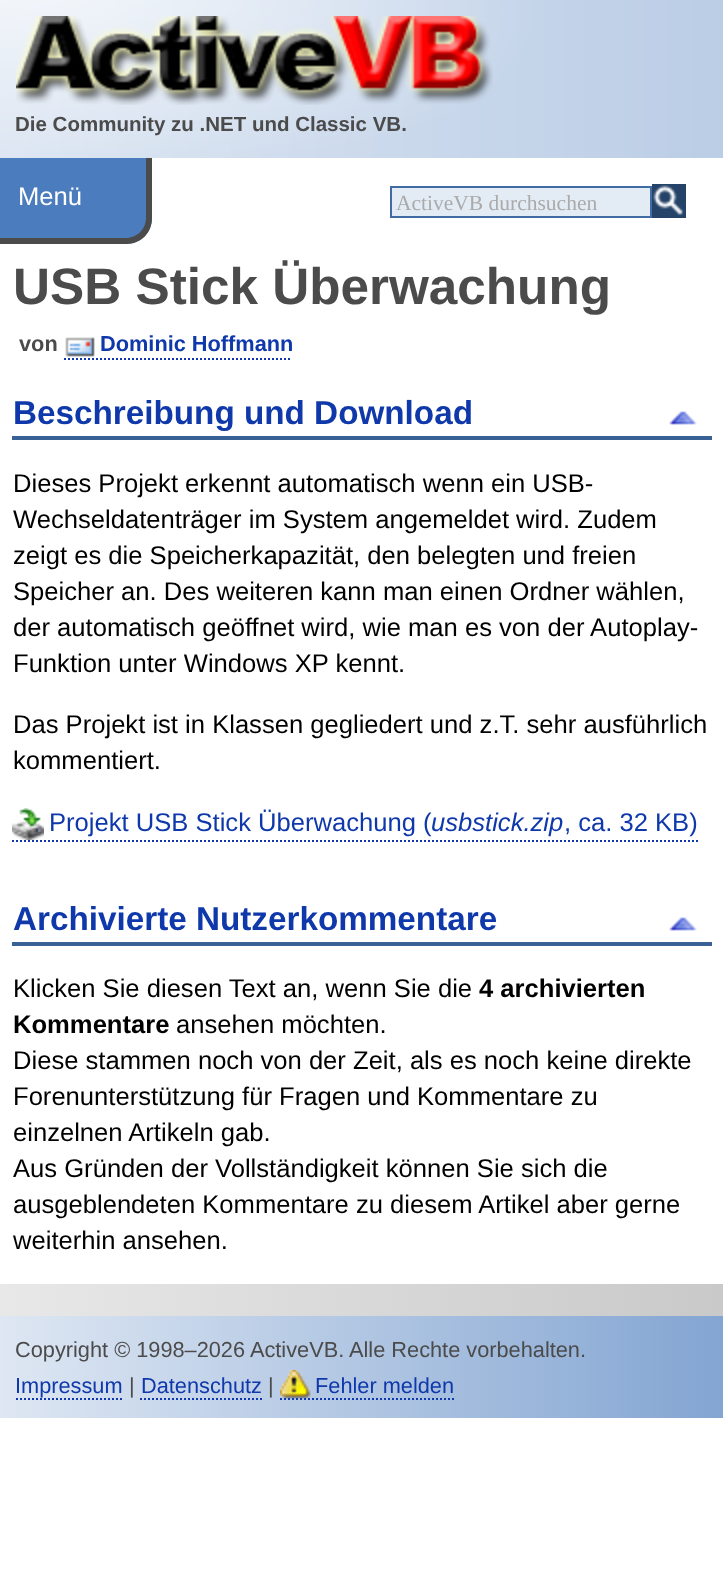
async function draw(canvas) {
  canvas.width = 723
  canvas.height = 1577
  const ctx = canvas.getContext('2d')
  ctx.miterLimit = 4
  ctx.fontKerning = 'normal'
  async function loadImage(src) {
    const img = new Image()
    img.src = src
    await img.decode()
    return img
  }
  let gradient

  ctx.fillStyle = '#fff'
  ctx.fillRect(0, 0, 723, 1577)
  ctx.drawImage(await loadImage('image0.png'), 0, 0, 723, 158)
  ctx.drawImage(await loadImage('image1.png'), 16, 16, 477, 89)
  ctx.font = 'bold 20.5px Liberation Sans'
  ctx.fillStyle = '#4b4b4b'
  ctx.fillText('Die Community zu .NET und Classic VB.', 15, 131)
  ctx.fillStyle = '#4b7cbd'
  ctx.beginPath()
  ctx.roundRect(0, 158, 152, 86, [0, 0, 26, 0])
  ctx.fill()
  ctx.fillStyle = '#4b4b4b'
  ctx.beginPath()
  ctx.moveTo(0, 158)
  ctx.lineTo(152, 158)
  ctx.lineTo(152, 218)
  ctx.bezierCurveTo(152, 233, 141, 244, 126, 244)
  ctx.lineTo(0, 244)
  ctx.closePath()
  ctx.moveTo(0, 158)
  ctx.lineTo(146, 158)
  ctx.lineTo(146, 218)
  ctx.bezierCurveTo(146, 229, 137, 238, 126, 238)
  ctx.lineTo(0, 238)
  ctx.closePath()
  ctx.fill('evenodd')
  ctx.font = '25.6px Liberation Sans'
  ctx.fillStyle = '#fff'
  ctx.fillText('Menü', 18, 205)
  ctx.fillStyle = '#e3ebf5'
  ctx.beginPath()
  ctx.rect(391, 187, 260, 30)
  ctx.fill()
  ctx.strokeStyle = '#406ba3'
  ctx.lineWidth = 2
  ctx.stroke()
  ctx.font = '21.5px Liberation Serif'
  ctx.fillStyle = '#aaa'
  ctx.fillText('ActiveVB durchsuchen', 396, 210)
  ctx.fillStyle = '#254268'
  ctx.fillRect(652, 184, 34, 34)
  ctx.drawImage(await loadImage('image2.png'), 653, 185, 31, 31)
  ctx.font = 'bold 51.25px Liberation Sans'
  ctx.fillStyle = '#4b4b4b'
  ctx.fillText('USB Stick Überwachung', 13, 304)
  ctx.font = 'bold 21.75px Liberation Sans'
  ctx.fillText('von', 19, 351)
  ctx.drawImage(await loadImage('image3.png'), 65, 337, 30, 20)
  ctx.fillStyle = '#0f39ab'
  ctx.fillText('Dominic Hoffmann', 100, 351)
  ctx.beginPath()
  ctx.moveTo(64, 359)
  ctx.lineTo(292, 359)
  ctx.strokeStyle = '#0f39ab'
  ctx.setLineDash([2, 2])
  ctx.stroke()
  ctx.fillStyle = '#396195'
  ctx.fillRect(12, 436, 700, 4)
  ctx.font = 'bold 33.25px Liberation Sans'
  ctx.fillStyle = '#0f39ab'
  ctx.fillText('Beschreibung und Download', 13, 424)
  ctx.drawImage(await loadImage('image4.png'), 669, 411, 28, 14)
  ctx.font = '25.6px Liberation Sans'
  ctx.fillStyle = '#000'
  ctx.fillText('Dieses Projekt erkennt automatisch wenn ein USB-', 13, 492)
  ctx.fillText('Wechseldatenträger im System angemeldet wird. Zudem', 13, 528)
  ctx.fillText('zeigt es die Speicherkapazität, den belegten und freien', 13, 564)
  ctx.fillText('Speicher an. Des weiteren kann man einen Ordner wählen,', 13, 600)
  ctx.fillText('der automatisch geöffnet wird, wie man es von der Autoplay-', 13, 636)
  ctx.fillText('Funktion unter Windows XP kennt.', 13, 672)
  ctx.fillText('Das Projekt ist in Klassen gegliedert und z.T. sehr ausführlich', 13, 733)
  ctx.fillText('kommentiert.', 13, 769)
  ctx.drawImage(await loadImage('image5.png'), 12, 808, 32, 32)
  ctx.fillStyle = '#0f39ab'
  ctx.fillText('Projekt USB Stick Überwachung (', 49, 831)
  ctx.font = 'italic 25.6px Liberation Sans'
  ctx.fillText('usbstick.zip', 431, 831)
  ctx.beginPath()
  ctx.moveTo(12, 841)
  ctx.lineTo(432, 841)
  ctx.stroke()
  ctx.beginPath()
  ctx.moveTo(432, 841)
  ctx.lineTo(564, 841)
  ctx.stroke()
  ctx.font = '25.6px Liberation Sans'
  ctx.fillText(', ca. 32 KB)', 564, 831)
  ctx.beginPath()
  ctx.moveTo(564, 841)
  ctx.lineTo(698, 841)
  ctx.stroke()
  ctx.fillStyle = '#396195'
  ctx.fillRect(12, 942, 700, 4)
  ctx.font = 'bold 33.25px Liberation Sans'
  ctx.fillStyle = '#0f39ab'
  ctx.fillText('Archivierte Nutzerkommentare', 13, 930)
  ctx.drawImage(await loadImage('image4.png'), 669, 917, 28, 14)
  ctx.font = '25.6px Liberation Sans'
  ctx.fillStyle = '#000'
  ctx.fillText('Klicken Sie diesen Text an, wenn Sie die', 13, 997)
  ctx.font = 'bold 25.6px Liberation Sans'
  ctx.fillText('4 archivierten', 479, 997)
  ctx.fillText('Kommentare', 13, 1033)
  ctx.font = '25.6px Liberation Sans'
  ctx.fillText('ansehen möchten.', 176, 1033)
  ctx.fillText('Diese stammen noch von der Zeit, als es noch keine direkte', 13, 1069)
  ctx.fillText('Forenunterstützung für Fragen und Kommentare zu', 13, 1105)
  ctx.fillText('einzelnen Artikeln gab.', 13, 1141)
  ctx.fillText('Aus Gründen der Vollständigkeit können Sie sich die', 13, 1177)
  ctx.fillText('ausgeblendeten Kommentare zu diesem Artikel aber gerne', 13, 1213)
  ctx.fillText('weiterhin ansehen.', 13, 1249)
  gradient = ctx.createLinearGradient(0, 1300, 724, 1300)
  gradient.addColorStop(0, '#e8e8e8')
  gradient.addColorStop(1, '#c9c9c9')
  ctx.fillStyle = gradient
  ctx.fillRect(0, 1284, 723, 32)
  gradient = ctx.createLinearGradient(0, 1367, 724, 1367)
  gradient.addColorStop(0, '#dee7f3')
  gradient.addColorStop(1, '#83a5d2')
  ctx.fillStyle = gradient
  ctx.fillRect(0, 1316, 723, 102)
  ctx.font = '21.75px Liberation Sans'
  ctx.fillStyle = '#4b4b4b'
  ctx.fillText('Copyright © 1998–2026 ActiveVB. Alle Rechte vorbehalten.', 15, 1357)
  ctx.fillStyle = '#0f39ab'
  ctx.fillText('Impressum', 15, 1393)
  ctx.beginPath()
  ctx.moveTo(16, 1399)
  ctx.lineTo(122, 1399)
  ctx.stroke()
  ctx.fillStyle = '#4b4b4b'
  ctx.fillText('|', 129, 1393)
  ctx.fillStyle = '#0f39ab'
  ctx.fillText('Datenschutz', 141, 1393)
  ctx.beginPath()
  ctx.moveTo(140, 1399)
  ctx.lineTo(262, 1399)
  ctx.stroke()
  ctx.fillStyle = '#4b4b4b'
  ctx.fillText('|', 268, 1393)
  ctx.drawImage(await loadImage('image6.png'), 280, 1370, 31, 29)
  ctx.fillStyle = '#0f39ab'
  ctx.fillText('Fehler melden', 315, 1393)
  ctx.beginPath()
  ctx.moveTo(280, 1399)
  ctx.lineTo(454, 1399)
  ctx.stroke()
}

draw(document.querySelector('canvas'))
